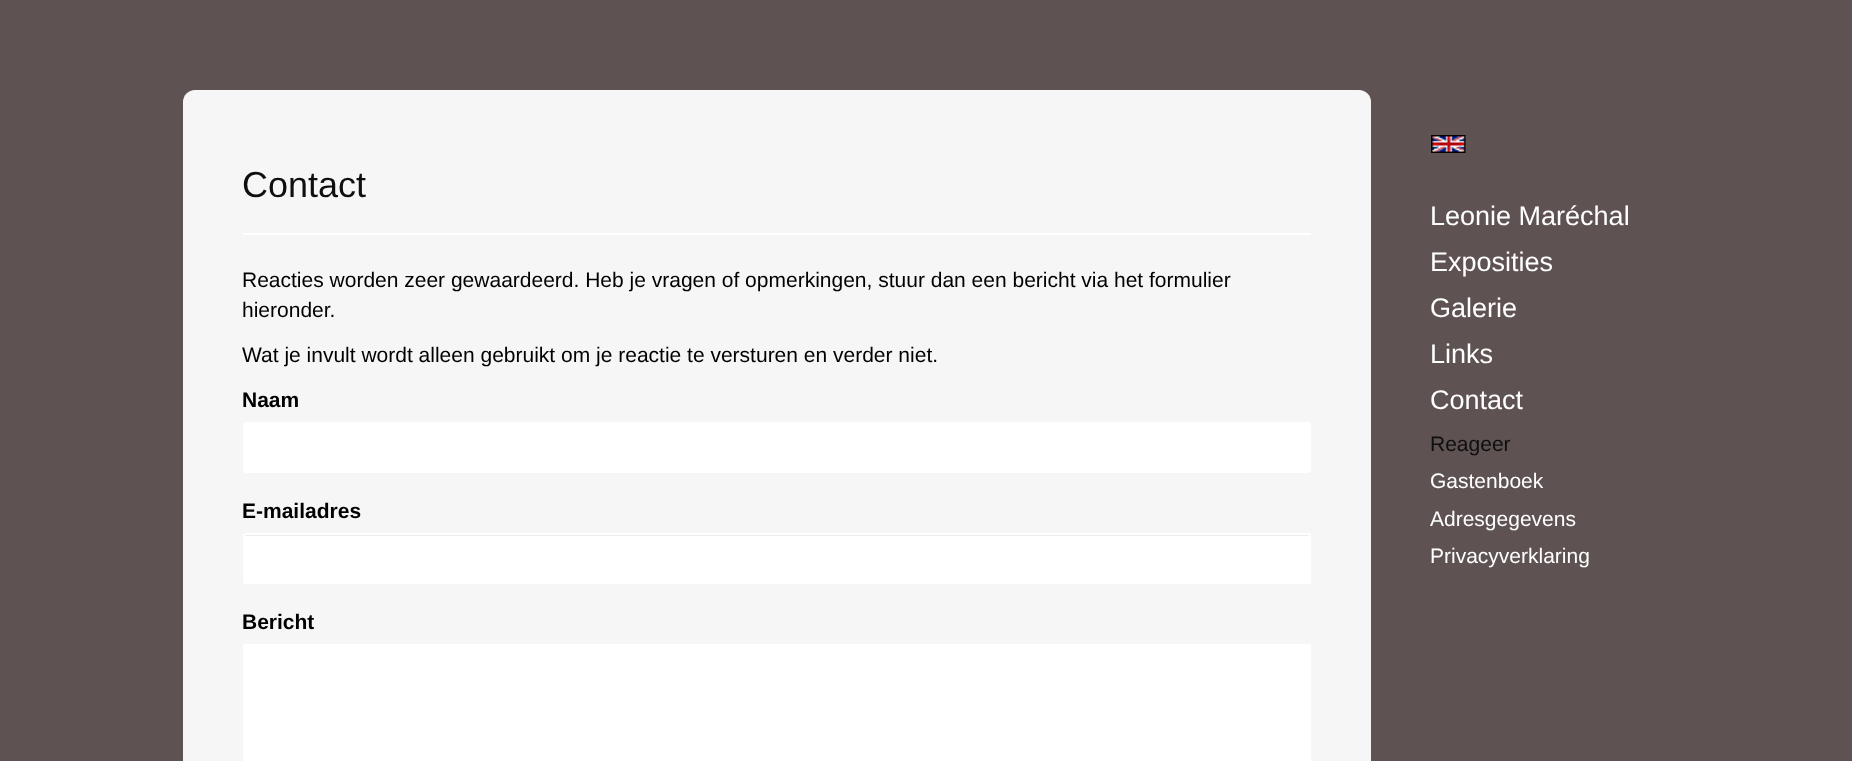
async function draw(canvas) {
  canvas.width = 1852
  canvas.height = 761
  const ctx = canvas.getContext('2d')
  ctx.miterLimit = 4
  ctx.fontKerning = 'normal'
  async function loadImage(src) {
    const img = new Image()
    img.src = src
    await img.decode()
    return img
  }

  ctx.fillStyle = '#5f5252'
  ctx.fillRect(0, 0, 1852, 761)
  ctx.fillStyle = '#f7f6f6'
  ctx.beginPath()
  ctx.roundRect(183, 90, 1188, 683, 12)
  ctx.fill()
  ctx.fillStyle = '#fff'
  ctx.fillRect(243, 233, 1068, 2)
  ctx.font = '36px Liberation Sans'
  ctx.fillStyle = '#100f0f'
  ctx.fillText('Contact', 242, 197)
  ctx.font = '21px Liberation Sans'
  ctx.fillStyle = '#000'
  ctx.fillText('Reacties worden zeer gewaardeerd. Heb je vragen of opmerkingen, stuur dan een bericht via het formulier', 242, 287)
  ctx.fillText('hieronder.', 242, 317)
  ctx.fillText('Wat je invult wordt alleen gebruikt om je reactie te versturen en verder niet.', 242, 362)
  ctx.font = 'bold 21px Liberation Sans'
  ctx.fillText('Naam', 242, 407)
  ctx.fillStyle = '#fff'
  ctx.beginPath()
  ctx.roundRect(243, 422, 1068, 51, 3)
  ctx.fill()
  ctx.fillStyle = '#000'
  ctx.fillText('E-mailadres', 242, 518)
  ctx.fillStyle = '#fff'
  ctx.beginPath()
  ctx.roundRect(243, 533, 1068, 51, 3)
  ctx.fill()
  ctx.fillStyle = '#ececec'
  ctx.beginPath()
  ctx.moveTo(246, 536)
  ctx.lineTo(1308, 536)
  ctx.bezierCurveTo(1309, 536, 1310, 536, 1310, 537)
  ctx.bezierCurveTo(1310, 536, 1310, 534, 1308, 534)
  ctx.lineTo(246, 534)
  ctx.lineTo(245, 535)
  ctx.lineTo(245, 536)
  ctx.closePath()
  ctx.fill()
  ctx.beginPath()
  ctx.roundRect(244, 534, 1066, 49, 2)
  ctx.strokeStyle = '#fff'
  ctx.lineWidth = 2
  ctx.stroke()
  ctx.fillStyle = '#000'
  ctx.fillText('Bericht', 242, 629)
  ctx.fillStyle = '#fff'
  ctx.beginPath()
  ctx.roundRect(243, 644, 1068, 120, 3)
  ctx.fill()
  ctx.drawImage(await loadImage('image0.png'), 1431, 135, 35, 18)
  ctx.font = '27px Liberation Sans'
  ctx.fillText('Leonie Maréchal', 1430, 225)
  ctx.fillText('Exposities', 1430, 271)
  ctx.fillText('Galerie', 1430, 317)
  ctx.fillText('Links', 1430, 363)
  ctx.fillText('Contact', 1430, 409)
  ctx.font = '21px Liberation Sans'
  ctx.fillStyle = '#100f0f'
  ctx.fillText('Reageer', 1430, 451)
  ctx.fillStyle = '#fff'
  ctx.fillText('Gastenboek', 1430, 488)
  ctx.fillText('Adresgegevens', 1430, 526)
  ctx.fillText('Privacyverklaring', 1430, 563)
}

draw(document.querySelector('canvas'))
